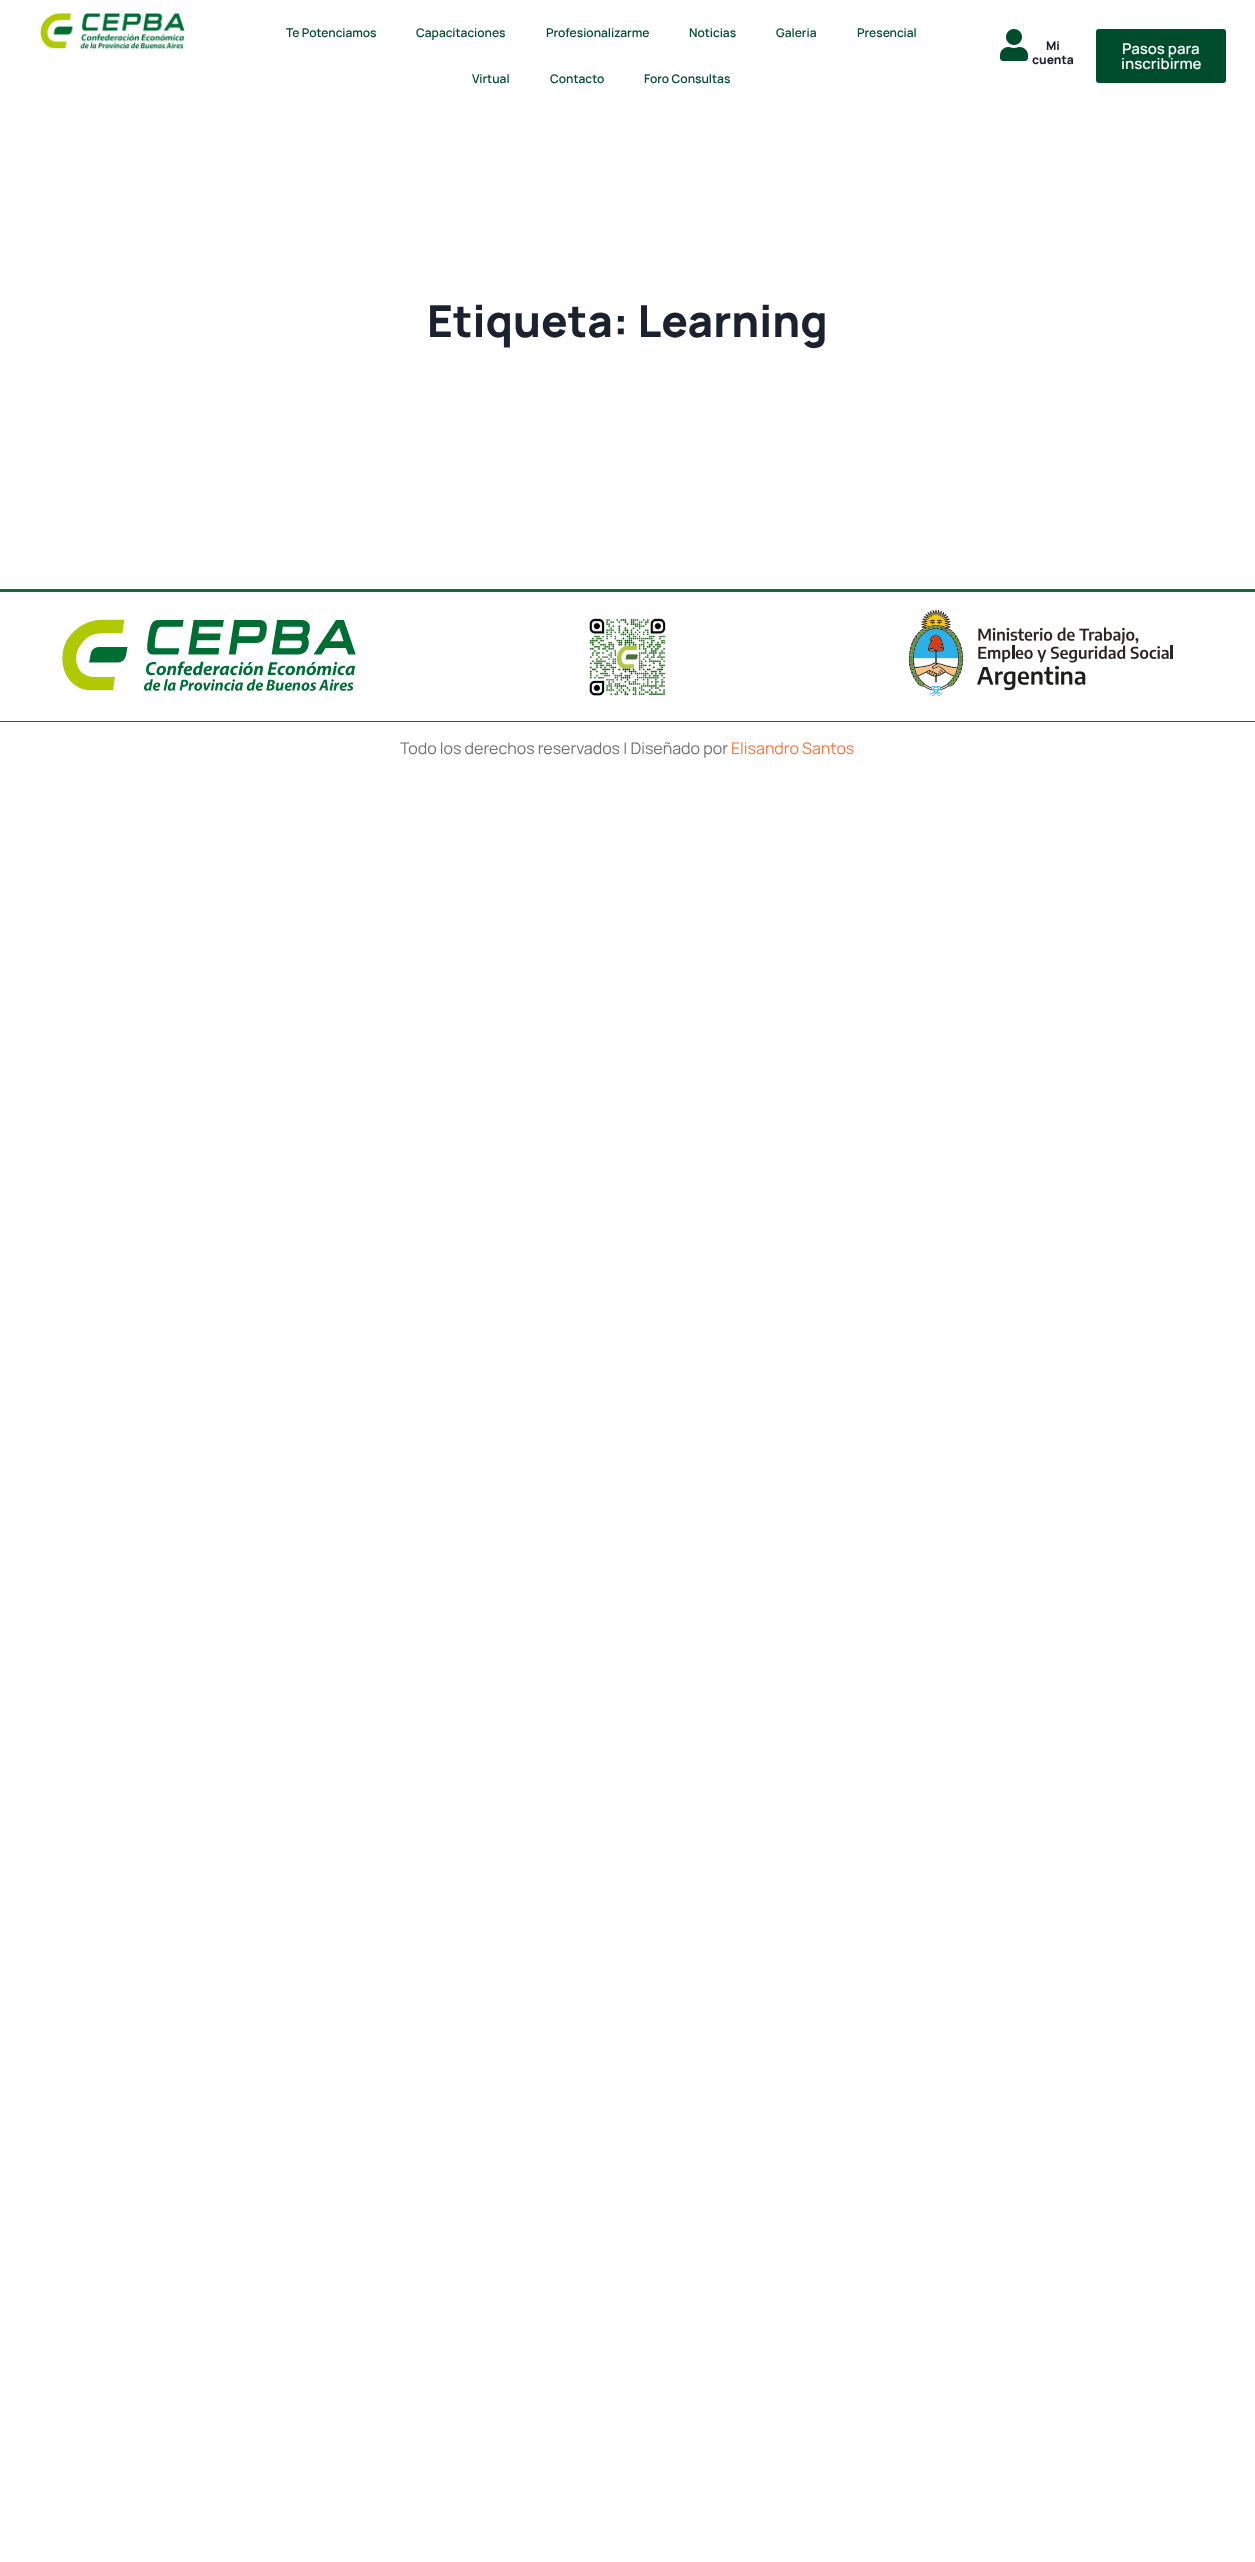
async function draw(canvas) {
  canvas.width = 1255
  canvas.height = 2562
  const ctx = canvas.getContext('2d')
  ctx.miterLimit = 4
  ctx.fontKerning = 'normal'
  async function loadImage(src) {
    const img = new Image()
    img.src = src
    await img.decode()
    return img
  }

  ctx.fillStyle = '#fff'
  ctx.fillRect(0, 0, 1255, 2562)
  ctx.drawImage(await loadImage('image0.png'), 40, 13, 145, 37)
  ctx.font = '600 12px Manrope'
  ctx.fillStyle = '#004d2d'
  ctx.fillText('Te Potenciamos', 286, 37)
  ctx.fillText('Capacitaciones', 416, 37)
  ctx.fillText('Profesionalizarme', 546, 37)
  ctx.fillText('Noticias', 689, 37)
  ctx.fillText('Galeria', 776, 37)
  ctx.fillText('Presencial', 857, 37)
  ctx.fillText('Virtual', 472, 83)
  ctx.fillText('Contacto', 550, 83)
  ctx.fillText('Foro Consultas', 644, 83)
  ctx.drawImage(await loadImage('image1.png'), 1000, 29, 28, 32)
  ctx.font = '800 12px Manrope'
  ctx.fillStyle = '#1b212f'
  ctx.fillText('Mi', 1046, 50)
  ctx.fillText('cuenta', 1032, 64)
  ctx.fillStyle = '#004d2d'
  ctx.beginPath()
  ctx.roundRect(1096, 29, 130, 54, 3)
  ctx.fill()
  ctx.font = '600 15px Manrope'
  ctx.fillStyle = '#fff'
  ctx.fillText('Pasos para', 1122, 54)
  ctx.fillText('inscribirme', 1121, 69)
  ctx.font = '800 44px Manrope'
  ctx.fillStyle = '#1b212f'
  ctx.fillText('Etiqueta: Learning', 427, 337)
  ctx.fillStyle = '#0e6e31'
  ctx.fillRect(0, 589, 1255, 3)
  ctx.drawImage(await loadImage('image2.png'), 62, 619, 294, 72)
  ctx.drawImage(await loadImage('image3.png'), 589, 618, 77, 78)
  ctx.drawImage(await loadImage('image4.png'), 908, 609, 265, 87)
  ctx.fillRect(0, 721, 1255, 1)
  ctx.font = '16px Manrope'
  ctx.fillStyle = '#707070'
  ctx.fillText('Todo los derechos reservados | Diseñado por', 400, 754)
  ctx.fillStyle = '#ff723a'
  ctx.fillText('Elisandro Santos', 731, 754)
}

draw(document.querySelector('canvas'))
